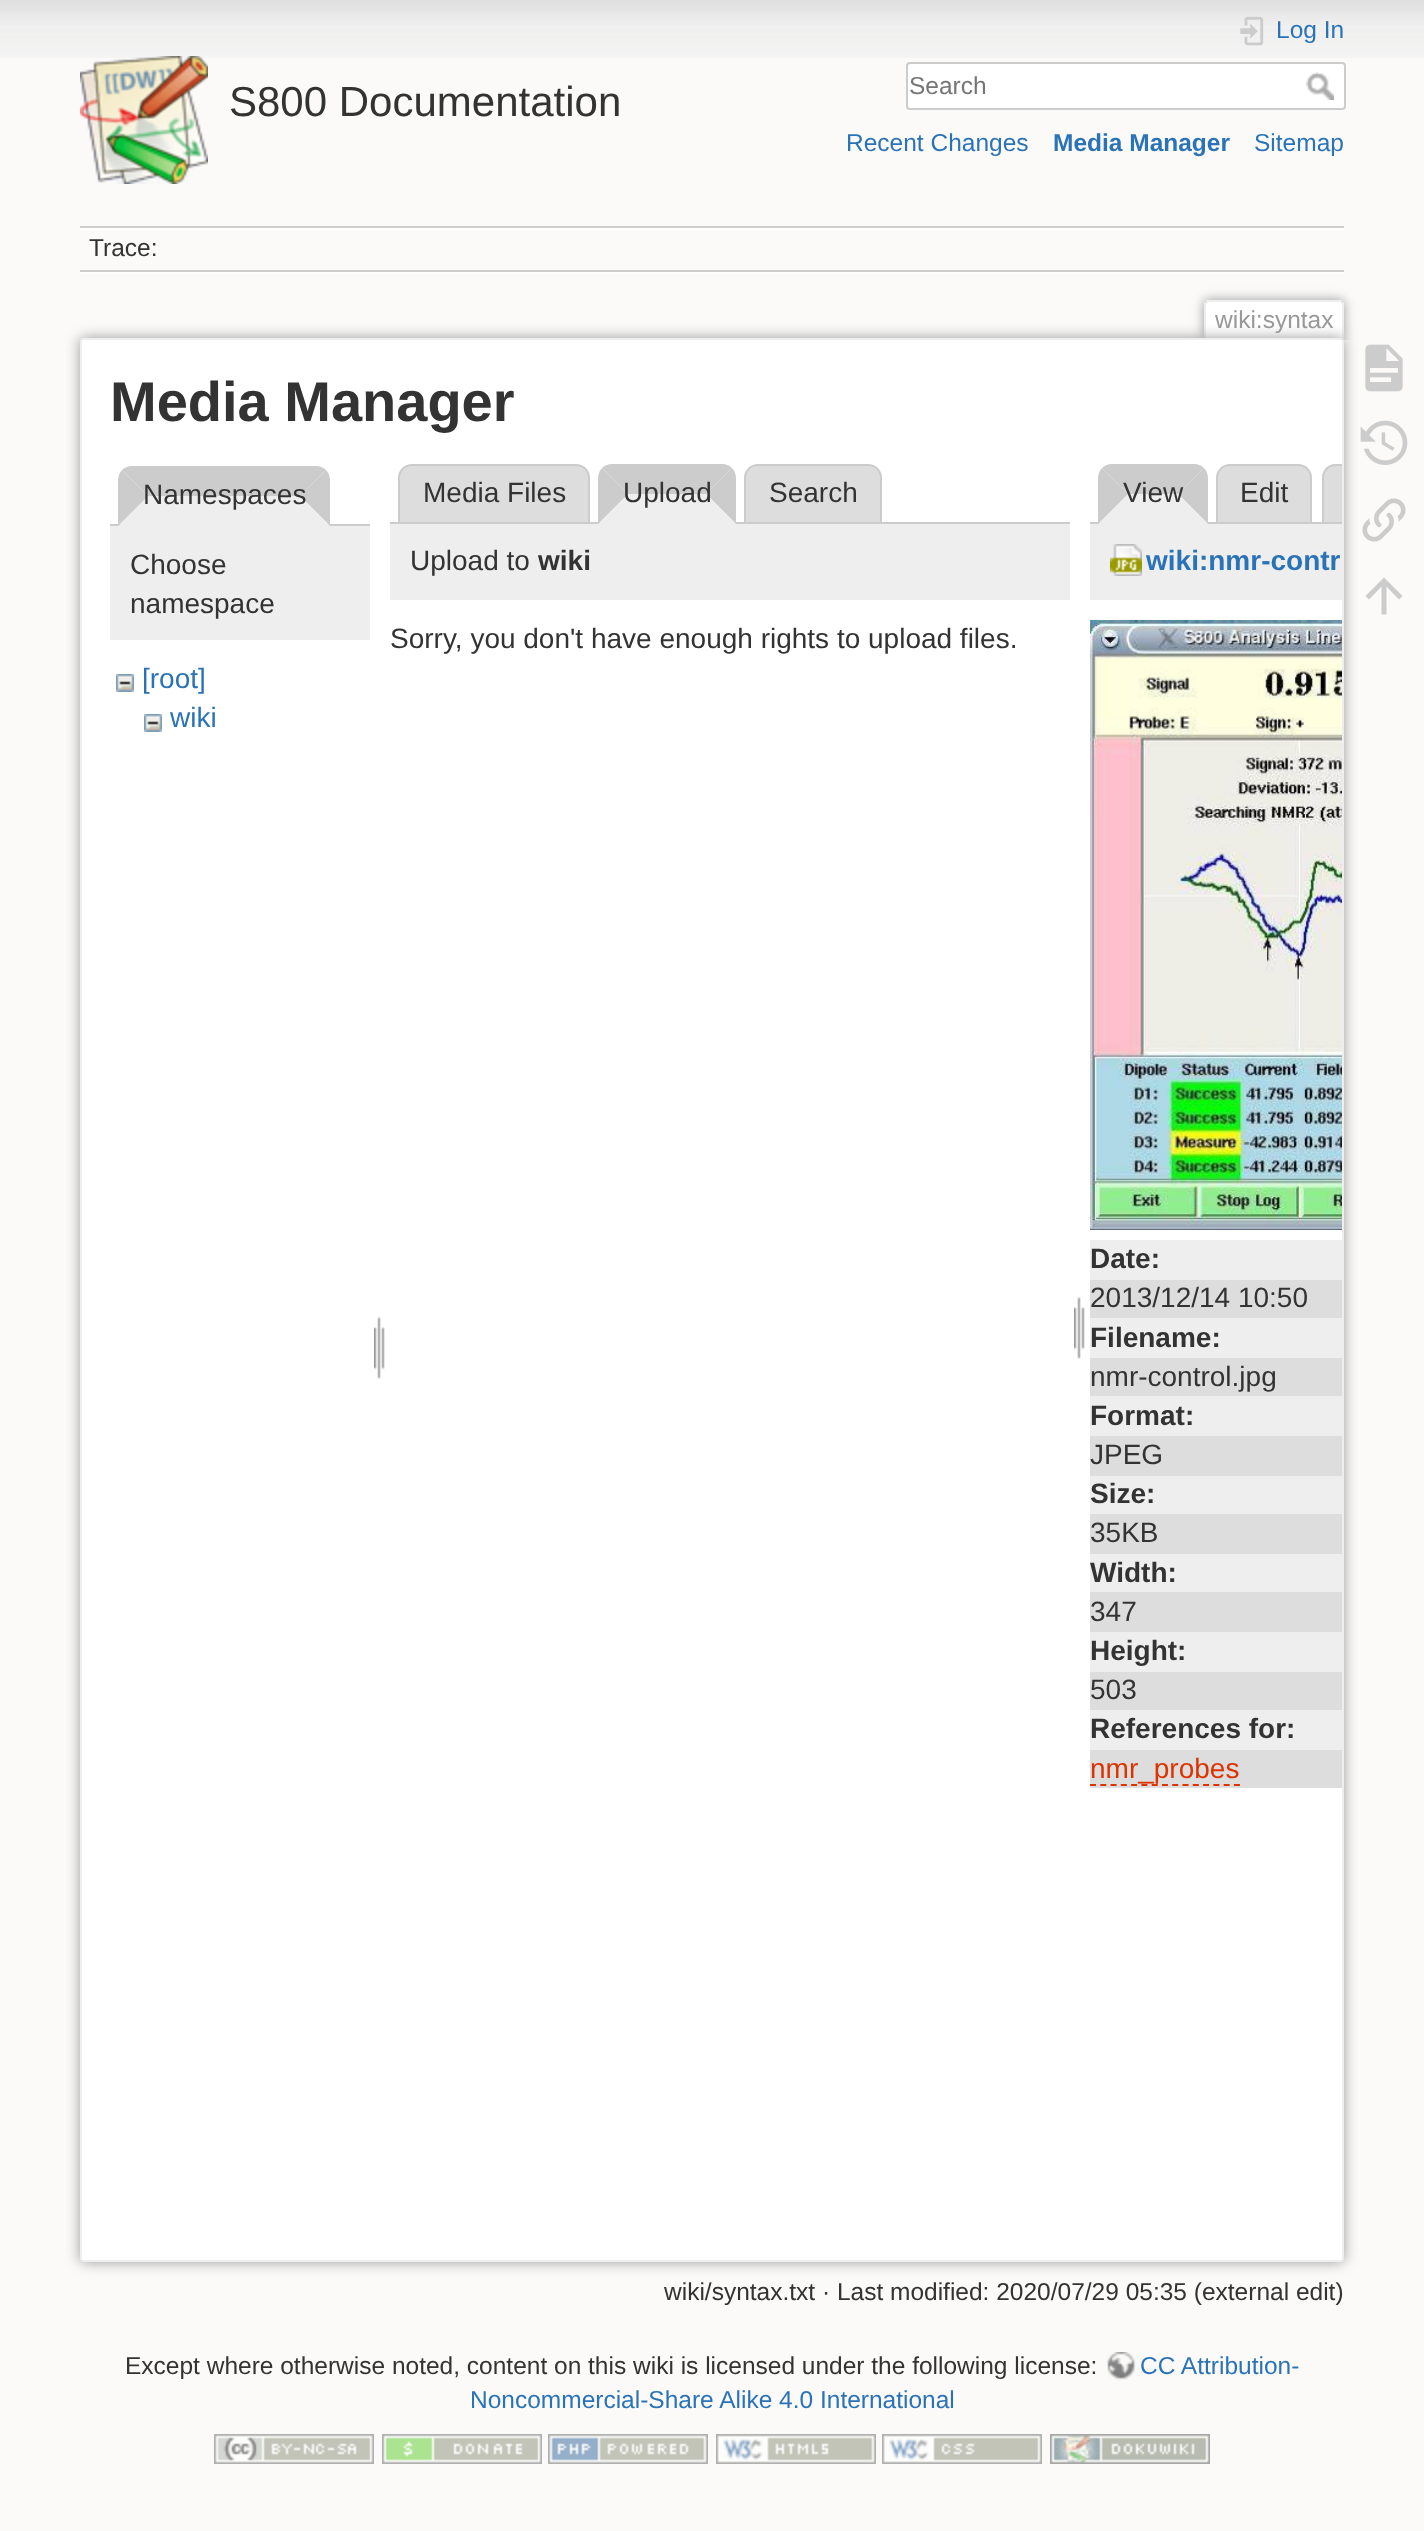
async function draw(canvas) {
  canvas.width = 1424
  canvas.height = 2531
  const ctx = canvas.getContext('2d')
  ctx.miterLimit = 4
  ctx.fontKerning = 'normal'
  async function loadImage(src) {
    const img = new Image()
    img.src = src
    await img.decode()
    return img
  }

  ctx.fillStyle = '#fbfaf9'
  ctx.fillRect(0, 0, 1424, 2531)
  ctx.drawImage(await loadImage('image0.png'), 0, 0, 1424, 58)
  ctx.drawImage(await loadImage('image1.png'), 80, 56, 128, 128)
  ctx.font = '42px Liberation Sans'
  ctx.fillStyle = '#333'
  ctx.fillText('S800 Documentation', 229, 116)
  ctx.drawImage(await loadImage('image2.png'), 1240, 16, 24, 30)
  ctx.font = '24.5px Liberation Sans'
  ctx.fillStyle = '#2b73b7'
  ctx.fillText('Log In', 1276, 38)
  ctx.fillStyle = '#fff'
  ctx.beginPath()
  ctx.roundRect(907, 63, 438, 46, 3)
  ctx.fill()
  ctx.strokeStyle = '#ccc'
  ctx.lineWidth = 2
  ctx.stroke()
  ctx.fillStyle = '#757575'
  ctx.fillText('Search', 909, 94)
  ctx.drawImage(await loadImage('image3.png'), 1306, 72, 28, 28)
  ctx.fillStyle = '#2b73b7'
  ctx.fillText('Recent Changes', 846, 151)
  ctx.font = 'bold 24.5px Liberation Sans'
  ctx.fillText('Media Manager', 1053, 151)
  ctx.font = '24.5px Liberation Sans'
  ctx.fillText('Sitemap', 1254, 151)
  ctx.fillStyle = '#ccc'
  ctx.fillRect(80, 226, 1264, 2)
  ctx.fillStyle = '#fff'
  ctx.fillRect(80, 272, 1264, 2)
  ctx.fillRect(80, 228, 1264, 2)
  ctx.fillStyle = '#ccc'
  ctx.fillRect(80, 270, 1264, 2)
  ctx.fillStyle = '#333'
  ctx.fillText('Trace:', 89, 256)
  ctx.save()
  ctx.beginPath()
  ctx.rect(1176, 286, 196, 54)
  ctx.clip()
  ctx.fillStyle = '#999'
  ctx.filter = 'blur(6px)'
  ctx.beginPath()
  ctx.roundRect(1204, 300, 140, 40, 4)
  ctx.fill()
  ctx.filter = 'none'
  ctx.restore()
  ctx.fillStyle = '#fff'
  ctx.beginPath()
  ctx.roundRect(1206, 302, 136, 38, [2, 2, 0, 0])
  ctx.fill()
  ctx.fillStyle = '#eee'
  ctx.fillRect(1206, 300, 136, 2)
  ctx.fillRect(1342, 302, 2, 38)
  ctx.fillRect(1204, 302, 2, 38)
  ctx.fillStyle = '#999'
  ctx.fillText('wiki:syntax', 1215, 328)
  ctx.filter = 'blur(7px)'
  ctx.beginPath()
  ctx.roundRect(80, 338, 1264, 1924, 4)
  ctx.fill()
  ctx.filter = 'none'
  ctx.fillStyle = '#fff'
  ctx.beginPath()
  ctx.roundRect(81, 339, 1262, 1922, 3)
  ctx.fill()
  ctx.strokeStyle = '#eee'
  ctx.stroke()
  ctx.font = 'bold 56px Liberation Sans'
  ctx.fillStyle = '#333'
  ctx.fillText('Media Manager', 110, 421)
  ctx.fillStyle = '#ccc'
  ctx.beginPath()
  ctx.moveTo(132, 466)
  ctx.lineTo(316, 466)
  ctx.bezierCurveTo(320, 466, 324, 468, 326, 470)
  ctx.lineTo(300, 496)
  ctx.lineTo(148, 496)
  ctx.lineTo(122, 470)
  ctx.bezierCurveTo(124, 468, 128, 466, 132, 466)
  ctx.closePath()
  ctx.fill()
  ctx.fillRect(110, 524, 260, 2)
  ctx.beginPath()
  ctx.moveTo(326, 470)
  ctx.lineTo(300, 496)
  ctx.lineTo(330, 526)
  ctx.lineTo(330, 480)
  ctx.bezierCurveTo(330, 476, 328, 472, 326, 470)
  ctx.closePath()
  ctx.fill()
  ctx.fillStyle = '#eee'
  ctx.beginPath()
  ctx.moveTo(330, 526)
  ctx.lineTo(300, 496)
  ctx.lineTo(148, 496)
  ctx.lineTo(118, 526)
  ctx.closePath()
  ctx.fill()
  ctx.fillStyle = '#ccc'
  ctx.beginPath()
  ctx.moveTo(118, 526)
  ctx.lineTo(118, 480)
  ctx.bezierCurveTo(118, 476, 120, 472, 122, 470)
  ctx.lineTo(148, 496)
  ctx.closePath()
  ctx.fill()
  ctx.font = '28px Liberation Sans'
  ctx.fillStyle = '#333'
  ctx.fillText('Namespaces', 143, 504)
  ctx.fillStyle = '#eee'
  ctx.fillRect(110, 526, 260, 114)
  ctx.fillStyle = '#333'
  ctx.fillText('Choose', 130, 574)
  ctx.fillText('namespace', 130, 613)
  ctx.drawImage(await loadImage('image4.png'), 116, 674, 18, 18)
  ctx.fillStyle = '#2b73b7'
  ctx.fillText('[root]', 142, 688)
  ctx.drawImage(await loadImage('image4.png'), 144, 714, 18, 18)
  ctx.fillText('wiki', 170, 727)
  ctx.drawImage(await loadImage('image5.png'), 374, 1316, 11, 63)
  ctx.fillStyle = '#ddd'
  ctx.beginPath()
  ctx.roundRect(399, 465, 190, 58, [13, 13, 0, 0])
  ctx.fill()
  ctx.strokeStyle = '#ccc'
  ctx.stroke()
  ctx.fillStyle = '#333'
  ctx.fillText('Media Files', 423, 502)
  ctx.fillStyle = '#ccc'
  ctx.beginPath()
  ctx.moveTo(612, 464)
  ctx.lineTo(722, 464)
  ctx.bezierCurveTo(726, 464, 730, 466, 732, 468)
  ctx.lineTo(706, 494)
  ctx.lineTo(628, 494)
  ctx.lineTo(602, 468)
  ctx.bezierCurveTo(604, 466, 608, 464, 612, 464)
  ctx.closePath()
  ctx.fill()
  ctx.fillStyle = '#ddd'
  ctx.beginPath()
  ctx.roundRect(745, 465, 136, 58, [13, 13, 0, 0])
  ctx.fill()
  ctx.stroke()
  ctx.fillStyle = '#ccc'
  ctx.fillRect(390, 522, 680, 2)
  ctx.beginPath()
  ctx.moveTo(732, 468)
  ctx.lineTo(706, 494)
  ctx.lineTo(736, 524)
  ctx.lineTo(736, 478)
  ctx.bezierCurveTo(736, 474, 734, 470, 732, 468)
  ctx.closePath()
  ctx.fill()
  ctx.fillStyle = '#eee'
  ctx.beginPath()
  ctx.moveTo(736, 524)
  ctx.lineTo(706, 494)
  ctx.lineTo(628, 494)
  ctx.lineTo(598, 524)
  ctx.closePath()
  ctx.fill()
  ctx.fillStyle = '#ccc'
  ctx.beginPath()
  ctx.moveTo(598, 524)
  ctx.lineTo(598, 478)
  ctx.bezierCurveTo(598, 474, 600, 470, 602, 468)
  ctx.lineTo(628, 494)
  ctx.closePath()
  ctx.fill()
  ctx.fillStyle = '#333'
  ctx.fillText('Upload', 623, 502)
  ctx.fillText('Search', 769, 502)
  ctx.fillStyle = '#eee'
  ctx.fillRect(390, 524, 680, 76)
  ctx.fillStyle = '#333'
  ctx.fillText('Upload to', 410, 570)
  ctx.font = 'bold 28px Liberation Sans'
  ctx.fillText('wiki', 538, 570)
  ctx.font = '28px Liberation Sans'
  ctx.fillText('Sorry, you don\'t have enough rights to upload files.', 390, 648)
  ctx.drawImage(await loadImage('image5.png'), 1074, 1296, 11, 63)
  ctx.fillStyle = '#ccc'
  ctx.beginPath()
  ctx.moveTo(1112, 464)
  ctx.lineTo(1194, 464)
  ctx.bezierCurveTo(1198, 464, 1202, 466, 1204, 468)
  ctx.lineTo(1178, 494)
  ctx.lineTo(1128, 494)
  ctx.lineTo(1102, 468)
  ctx.bezierCurveTo(1104, 466, 1108, 464, 1112, 464)
  ctx.closePath()
  ctx.fill()
  ctx.fillStyle = '#ddd'
  ctx.beginPath()
  ctx.roundRect(1217, 465, 94, 58, [13, 13, 0, 0])
  ctx.fill()
  ctx.stroke()
  ctx.fillStyle = '#ccc'
  ctx.fillRect(1090, 522, 232, 2)
  ctx.beginPath()
  ctx.moveTo(1204, 468)
  ctx.lineTo(1178, 494)
  ctx.lineTo(1208, 524)
  ctx.lineTo(1208, 478)
  ctx.bezierCurveTo(1208, 474, 1206, 470, 1204, 468)
  ctx.closePath()
  ctx.fill()
  ctx.fillStyle = '#eee'
  ctx.beginPath()
  ctx.moveTo(1208, 524)
  ctx.lineTo(1178, 494)
  ctx.lineTo(1128, 494)
  ctx.lineTo(1098, 524)
  ctx.closePath()
  ctx.fill()
  ctx.fillStyle = '#ccc'
  ctx.beginPath()
  ctx.moveTo(1098, 524)
  ctx.lineTo(1098, 478)
  ctx.bezierCurveTo(1098, 474, 1100, 470, 1102, 468)
  ctx.lineTo(1128, 494)
  ctx.closePath()
  ctx.fill()
  ctx.fillStyle = '#333'
  ctx.fillText('View', 1123, 502)
  ctx.fillText('Edit', 1240, 502)
  ctx.fillStyle = '#ddd'
  ctx.beginPath()
  ctx.roundRect(1322, 464, 20, 60, [14, 0, 0, 0])
  ctx.fill()
  ctx.fillStyle = '#ccc'
  ctx.beginPath()
  ctx.moveTo(1336, 464)
  ctx.bezierCurveTo(1328, 464, 1322, 470, 1322, 478)
  ctx.lineTo(1322, 524)
  ctx.lineTo(1342, 524)
  ctx.lineTo(1342, 522)
  ctx.lineTo(1324, 522)
  ctx.lineTo(1324, 478)
  ctx.bezierCurveTo(1324, 471, 1329, 466, 1336, 466)
  ctx.lineTo(1342, 466)
  ctx.lineTo(1342, 464)
  ctx.closePath()
  ctx.fill()
  ctx.fillStyle = '#eee'
  ctx.fillRect(1090, 524, 252, 76)
  ctx.drawImage(await loadImage('image6.png'), 1110, 544, 32, 32)
  ctx.font = 'bold 28px Liberation Sans'
  ctx.fillStyle = '#2b73b7'
  ctx.fillText('wiki:nmr-contr', 1146, 570)
  ctx.drawImage(await loadImage('image7.png'), 1090, 620, 252, 610)
  ctx.fillStyle = '#eee'
  ctx.fillRect(1090, 1240, 252, 40)
  ctx.fillStyle = '#333'
  ctx.fillText('Date:', 1090, 1268)
  ctx.fillStyle = '#ddd'
  ctx.fillRect(1090, 1280, 252, 38)
  ctx.font = '28px Liberation Sans'
  ctx.fillStyle = '#333'
  ctx.fillText('2013/12/14 10:50', 1090, 1307)
  ctx.fillStyle = '#eee'
  ctx.fillRect(1090, 1318, 252, 40)
  ctx.font = 'bold 28px Liberation Sans'
  ctx.fillStyle = '#333'
  ctx.fillText('Filename:', 1090, 1347)
  ctx.fillStyle = '#ddd'
  ctx.fillRect(1090, 1358, 252, 38)
  ctx.font = '28px Liberation Sans'
  ctx.fillStyle = '#333'
  ctx.fillText('nmr-control.jpg', 1090, 1386)
  ctx.fillStyle = '#eee'
  ctx.fillRect(1090, 1396, 252, 40)
  ctx.font = 'bold 28px Liberation Sans'
  ctx.fillStyle = '#333'
  ctx.fillText('Format:', 1090, 1425)
  ctx.fillStyle = '#ddd'
  ctx.fillRect(1090, 1436, 252, 40)
  ctx.font = '28px Liberation Sans'
  ctx.fillStyle = '#333'
  ctx.fillText('JPEG', 1090, 1464)
  ctx.fillStyle = '#eee'
  ctx.fillRect(1090, 1476, 252, 38)
  ctx.font = 'bold 28px Liberation Sans'
  ctx.fillStyle = '#333'
  ctx.fillText('Size:', 1090, 1503)
  ctx.fillStyle = '#ddd'
  ctx.fillRect(1090, 1514, 252, 40)
  ctx.font = '28px Liberation Sans'
  ctx.fillStyle = '#333'
  ctx.fillText('35KB', 1090, 1542)
  ctx.fillStyle = '#eee'
  ctx.fillRect(1090, 1554, 252, 38)
  ctx.font = 'bold 28px Liberation Sans'
  ctx.fillStyle = '#333'
  ctx.fillText('Width:', 1090, 1582)
  ctx.fillStyle = '#ddd'
  ctx.fillRect(1090, 1592, 252, 40)
  ctx.font = '28px Liberation Sans'
  ctx.fillStyle = '#333'
  ctx.fillText('347', 1090, 1621)
  ctx.fillStyle = '#eee'
  ctx.fillRect(1090, 1632, 252, 40)
  ctx.font = 'bold 28px Liberation Sans'
  ctx.fillStyle = '#333'
  ctx.fillText('Height:', 1090, 1660)
  ctx.fillStyle = '#ddd'
  ctx.fillRect(1090, 1672, 252, 38)
  ctx.font = '28px Liberation Sans'
  ctx.fillStyle = '#333'
  ctx.fillText('503', 1090, 1699)
  ctx.fillStyle = '#eee'
  ctx.fillRect(1090, 1710, 252, 40)
  ctx.font = 'bold 28px Liberation Sans'
  ctx.fillStyle = '#333'
  ctx.fillText('References for:', 1090, 1738)
  ctx.fillStyle = '#ddd'
  ctx.fillRect(1090, 1750, 252, 38)
  ctx.font = '28px Liberation Sans'
  ctx.fillStyle = '#d30'
  ctx.fillText('nmr_probes', 1090, 1778)
  ctx.beginPath()
  ctx.moveTo(1090, 1785)
  ctx.lineTo(1240, 1785)
  ctx.strokeStyle = '#d30'
  ctx.setLineDash([6, 4.28])
  ctx.stroke()
  ctx.font = '24.5px Liberation Sans'
  ctx.fillStyle = '#333'
  ctx.fillText('wiki/syntax.txt · Last modified: 2020/07/29 05:35 (external edit)', 664, 2300)
  ctx.drawImage(await loadImage('image8.png'), 1365, 344, 38, 48)
  ctx.drawImage(await loadImage('image9.png'), 1360, 420, 48, 45)
  ctx.drawImage(await loadImage('image10.png'), 1362, 498, 44, 44)
  ctx.fillStyle = '#ccc'
  ctx.beginPath()
  ctx.moveTo(1386.5, 614.5)
  ctx.lineTo(1381.5, 614.5)
  ctx.lineTo(1381.5, 586.5)
  ctx.lineTo(1369, 599.5)
  ctx.lineTo(1365.5, 596)
  ctx.lineTo(1384, 577.5)
  ctx.lineTo(1402.5, 596)
  ctx.lineTo(1399, 599.5)
  ctx.lineTo(1386.5, 586.5)
  ctx.closePath()
  ctx.fill()
  ctx.fillStyle = '#333'
  ctx.fillText('Except where otherwise noted, content on this wiki is licensed under the following license:', 125, 2374)
  ctx.drawImage(await loadImage('image11.png'), 1107, 2352, 29, 28)
  ctx.fillStyle = '#2b73b7'
  ctx.fillText('CC Attribution-', 1140, 2374)
  ctx.fillText('Noncommercial-Share Alike 4.0 International', 470, 2408)
  ctx.drawImage(await loadImage('image12.png'), 214, 2434, 160, 30)
  ctx.drawImage(await loadImage('image13.png'), 382, 2434, 160, 30)
  ctx.drawImage(await loadImage('image14.png'), 548, 2434, 160, 30)
  ctx.drawImage(await loadImage('image15.png'), 716, 2434, 160, 30)
  ctx.drawImage(await loadImage('image16.png'), 882, 2434, 160, 30)
  ctx.drawImage(await loadImage('image17.png'), 1050, 2434, 160, 30)
}

draw(document.querySelector('canvas'))
